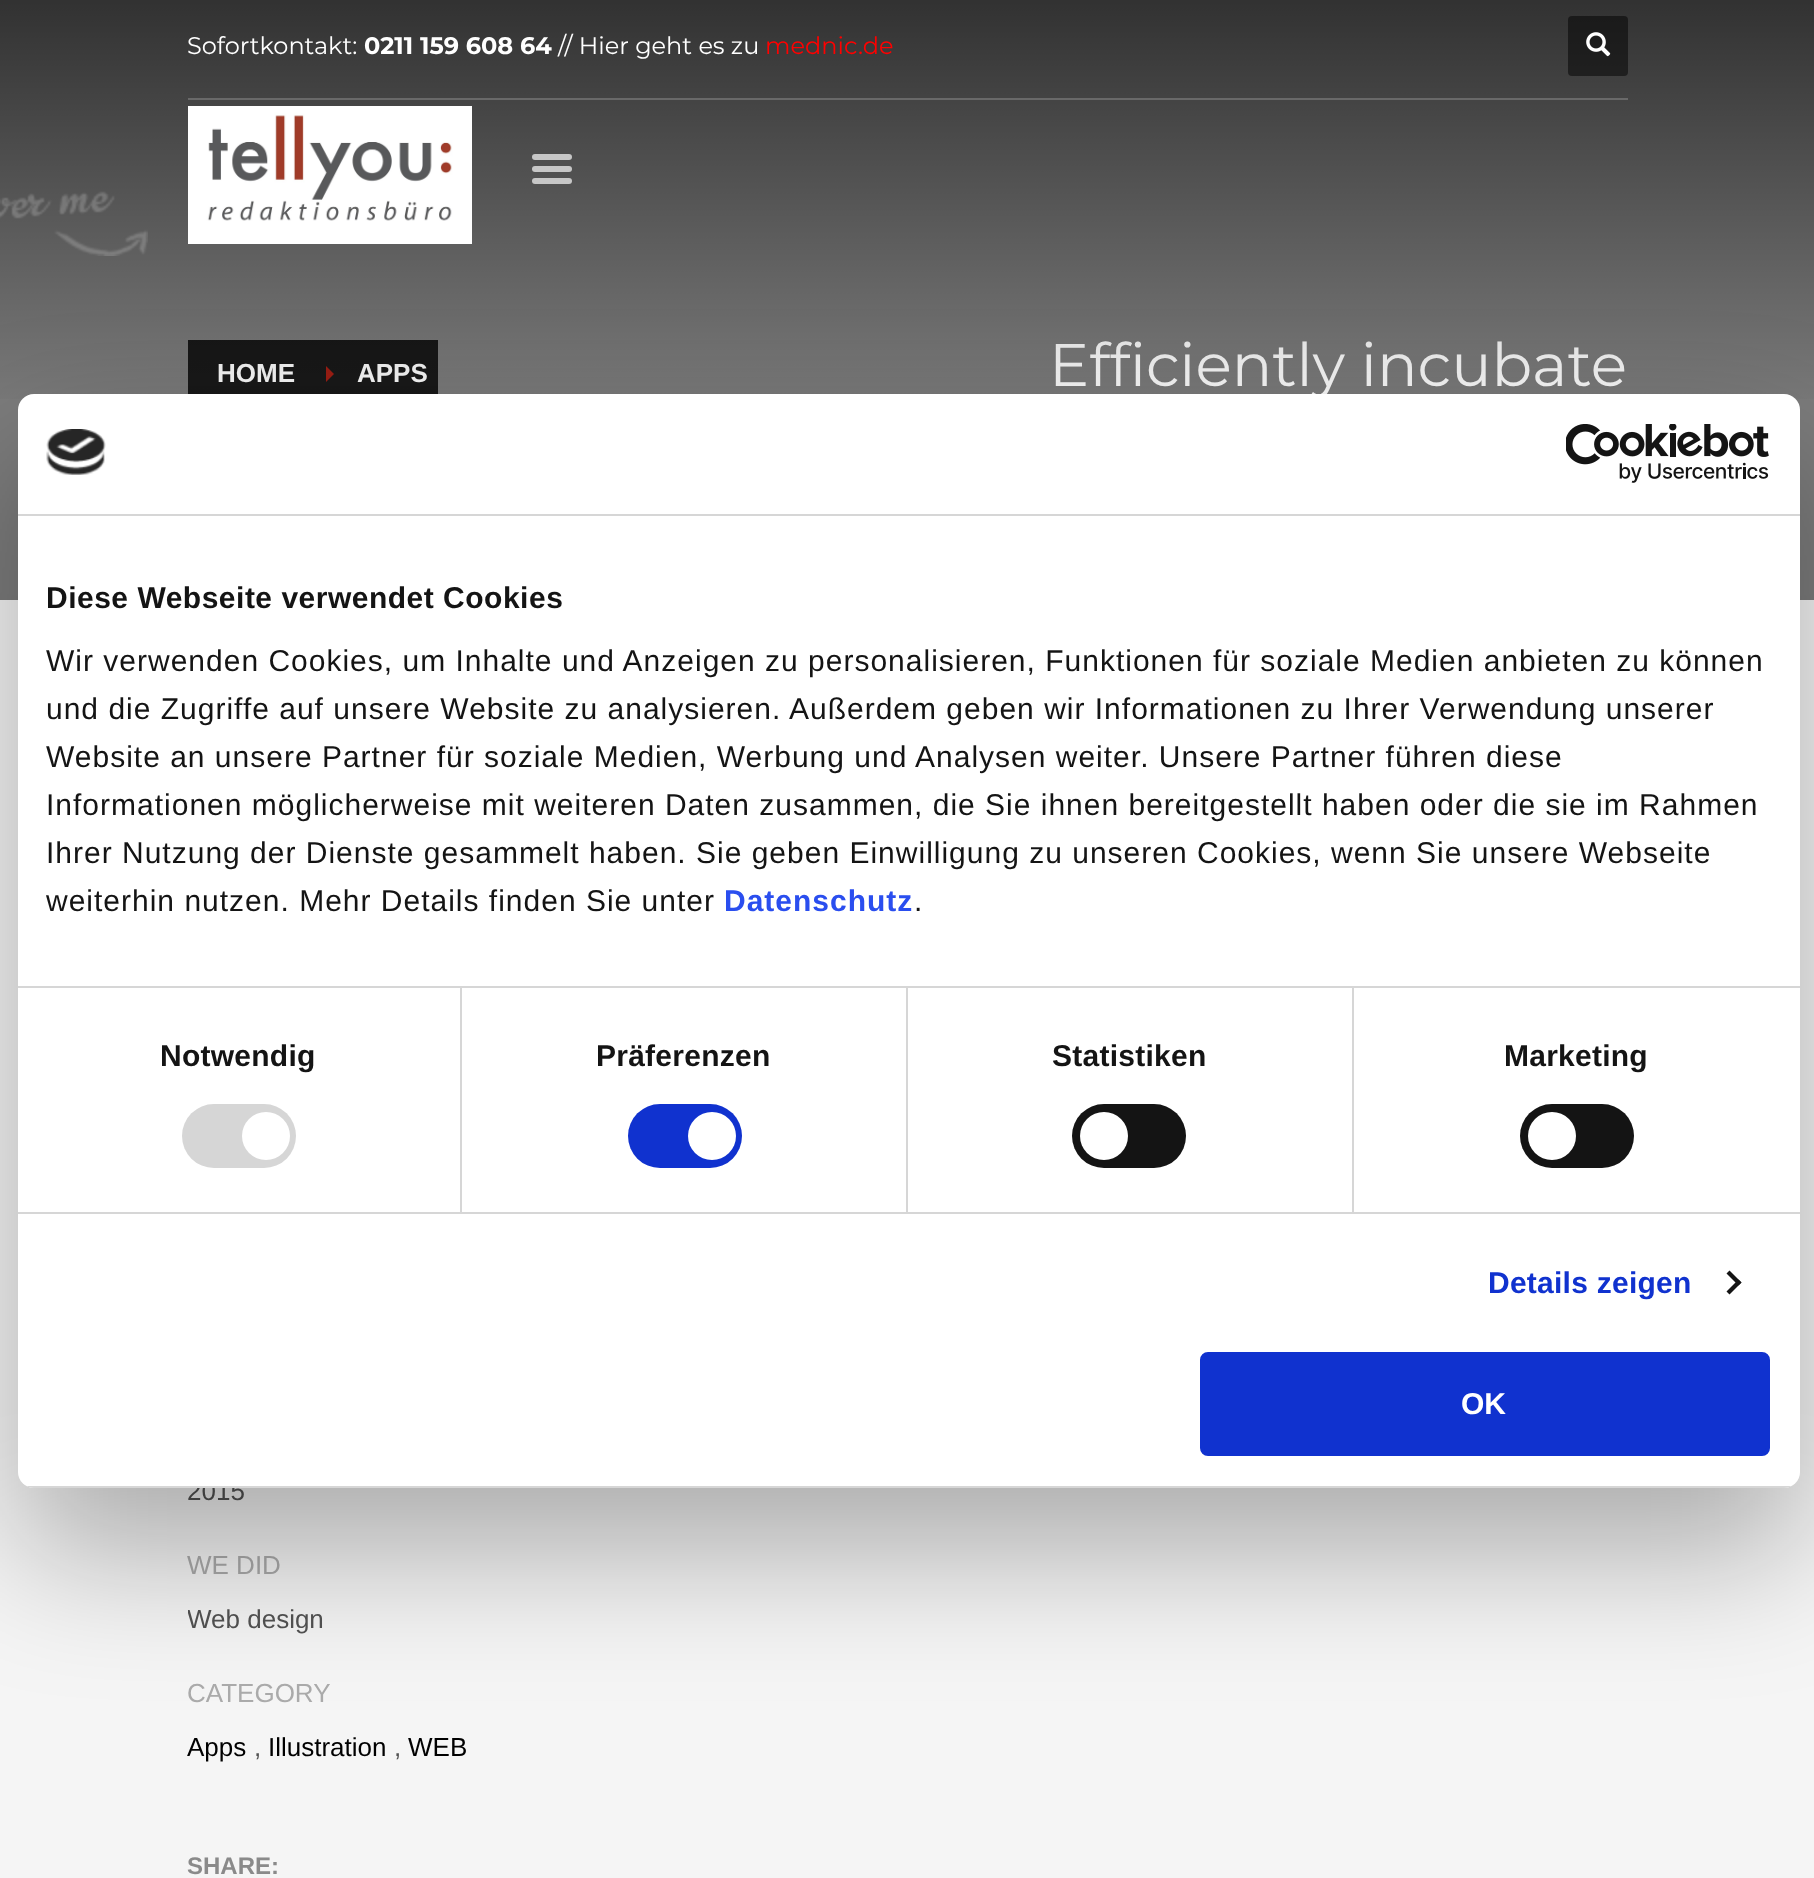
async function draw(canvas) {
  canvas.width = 1814
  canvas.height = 1878
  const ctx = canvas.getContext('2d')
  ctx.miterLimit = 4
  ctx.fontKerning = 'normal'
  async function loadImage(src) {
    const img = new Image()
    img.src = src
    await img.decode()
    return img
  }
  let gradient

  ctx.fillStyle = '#f5f5f5'
  ctx.fillRect(0, 0, 1814, 1878)
  ctx.fillStyle = '#7c7c7c'
  ctx.fillRect(0, 0, 1814, 600)
  ctx.fillStyle = '#191919'
  ctx.fillRect(188, 340, 250, 54)
  ctx.font = 'bold 26px Liberation Sans'
  ctx.fillStyle = '#fff'
  ctx.fillText('HOME', 217, 382)
  ctx.fillStyle = '#a31f14'
  ctx.beginPath()
  ctx.moveTo(326, 382)
  ctx.lineTo(326, 366)
  ctx.lineTo(334, 374)
  ctx.closePath()
  ctx.fill()
  ctx.fillStyle = '#fff'
  ctx.fillText('APPS', 357, 382)
  ctx.font = '60px Montserrat'
  ctx.fillText('Efficiently incubate', 1049, 386)
  gradient = ctx.createLinearGradient(907, 0, 907, 414)
  gradient.addColorStop(0, '#00000099')
  gradient.addColorStop(1, '#00000000')
  ctx.fillStyle = gradient
  ctx.fillRect(0, 0, 1814, 399)
  ctx.font = '24px Montserrat'
  ctx.fillStyle = '#fff'
  ctx.fillText('Sofortkontakt:', 187, 54)
  ctx.font = 'bold 24px Montserrat'
  ctx.fillText('0211 159 608 64', 364, 54)
  ctx.font = '24px Montserrat'
  ctx.fillText('// Hier geht es zu', 558, 54)
  ctx.fillStyle = '#f00'
  ctx.fillText('mednic.de', 765, 54)
  ctx.fillStyle = '#00000080'
  ctx.beginPath()
  ctx.roundRect(1568, 16, 60, 60, 4)
  ctx.fill()
  ctx.drawImage(await loadImage('image0.png'), 1586, 32, 25, 25)
  ctx.fillStyle = '#696969'
  ctx.fillRect(188, 98, 1440, 2)
  ctx.drawImage(await loadImage('image1.png'), 0, 191, 148, 65)
  ctx.drawImage(await loadImage('image2.png'), 188, 106, 284, 138)
  ctx.fillStyle = '#c7c7c7'
  ctx.beginPath()
  ctx.roundRect(532, 154, 40, 6, 3)
  ctx.fill()
  ctx.beginPath()
  ctx.roundRect(532, 166, 40, 6, 3)
  ctx.fill()
  ctx.beginPath()
  ctx.roundRect(532, 178, 40, 6, 3)
  ctx.fill()
  ctx.font = '26px Liberation Sans'
  ctx.fillStyle = '#535353'
  ctx.fillText('2015', 187, 1500)
  ctx.fillStyle = '#ababab'
  ctx.fillText('WE DID', 187, 1574)
  ctx.save()
  ctx.beginPath()
  ctx.rect(188, 1598, 1440, 44)
  ctx.clip()
  ctx.fillStyle = '#535353'
  ctx.fillText('Web design', 187, 1628)
  ctx.restore()
  ctx.fillText('CATEGORY', 187, 1702)
  ctx.fillStyle = '#000'
  ctx.fillText('Apps', 187, 1756)
  ctx.fillStyle = '#535353'
  ctx.fillText(',', 254, 1756)
  ctx.fillStyle = '#000'
  ctx.fillText('Illustration', 268, 1756)
  ctx.fillStyle = '#535353'
  ctx.fillText(',', 394, 1756)
  ctx.fillStyle = '#000'
  ctx.fillText('WEB', 408, 1756)
  ctx.font = 'bold 24px Liberation Sans'
  ctx.fillStyle = '#8a8a8a'
  ctx.fillText('SHARE:', 187, 1874)
  ctx.fillStyle = '#0000004d'
  ctx.filter = 'blur(68px)'
  ctx.beginPath()
  ctx.roundRect(18, 458, 1782, 1094, 16)
  ctx.fill()
  ctx.filter = 'none'
  ctx.fillStyle = '#fff'
  ctx.beginPath()
  ctx.roundRect(18, 394, 1782, 1094, 16)
  ctx.fill()
  ctx.fillStyle = '#d6d6d6'
  ctx.fillRect(18, 514, 1782, 2)
  ctx.drawImage(await loadImage('image3.png'), 46, 429, 60, 46)
  ctx.drawImage(await loadImage('image4.png'), 1566, 424, 203, 59)
  ctx.fillRect(18, 986, 1782, 2)
  ctx.letterSpacing = '0.5px'
  ctx.font = 'bold 30px Liberation Sans'
  ctx.fillStyle = '#141414'
  ctx.fillText('Diese Webseite verwendet Cookies', 46, 608)
  ctx.letterSpacing = '1px'
  ctx.font = '30px Liberation Sans'
  ctx.fillText('Wir verwenden Cookies, um Inhalte und Anzeigen zu personalisieren, Funktionen für soziale Medien anbieten zu können', 46, 671)
  ctx.fillText('und die Zugriffe auf unsere Website zu analysieren. Außerdem geben wir Informationen zu Ihrer Verwendung unserer', 46, 719)
  ctx.fillText('Website an unsere Partner für soziale Medien, Werbung und Analysen weiter. Unsere Partner führen diese', 46, 767)
  ctx.fillText('Informationen möglicherweise mit weiteren Daten zusammen, die Sie ihnen bereitgestellt haben oder die sie im Rahmen', 46, 815)
  ctx.fillText('Ihrer Nutzung der Dienste gesammelt haben. Sie geben Einwilligung zu unseren Cookies, wenn Sie unsere Webseite', 46, 863)
  ctx.fillText('weiterhin nutzen. Mehr Details finden Sie unter', 46, 911)
  ctx.font = 'bold 30px Liberation Sans'
  ctx.fillStyle = '#2a4eef'
  ctx.fillText('Datenschutz', 724, 911)
  ctx.font = '30px Liberation Sans'
  ctx.fillStyle = '#141414'
  ctx.fillText('.', 914, 911)
  ctx.fillStyle = '#d6d6d6'
  ctx.fillRect(18, 1212, 1782, 2)
  ctx.fillRect(460, 988, 2, 224)
  ctx.letterSpacing = '0.25px'
  ctx.font = 'bold 30px Liberation Sans'
  ctx.fillStyle = '#141414'
  ctx.fillText('Notwendig', 160, 1066)
  ctx.fillStyle = '#d6d6d6'
  ctx.beginPath()
  ctx.roundRect(182, 1104, 114, 64, 32)
  ctx.fill()
  ctx.fillStyle = '#fff'
  ctx.beginPath()
  ctx.arc(266, 1136, 24, 0, 2 * Math.PI)
  ctx.fill()
  ctx.fillStyle = '#d6d6d6'
  ctx.fillRect(906, 988, 2, 224)
  ctx.fillStyle = '#141414'
  ctx.fillText('Präferenzen', 596, 1066)
  ctx.fillStyle = '#1032cf'
  ctx.beginPath()
  ctx.roundRect(628, 1104, 114, 64, 32)
  ctx.fill()
  ctx.fillStyle = '#fff'
  ctx.beginPath()
  ctx.arc(712, 1136, 24, 0, 2 * Math.PI)
  ctx.fill()
  ctx.fillStyle = '#d6d6d6'
  ctx.fillRect(1352, 988, 2, 224)
  ctx.fillStyle = '#141414'
  ctx.fillText('Statistiken', 1052, 1066)
  ctx.beginPath()
  ctx.roundRect(1072, 1104, 114, 64, 32)
  ctx.fill()
  ctx.fillStyle = '#fff'
  ctx.beginPath()
  ctx.arc(1104, 1136, 24, 0, 2 * Math.PI)
  ctx.fill()
  ctx.fillStyle = '#141414'
  ctx.fillText('Marketing', 1504, 1066)
  ctx.beginPath()
  ctx.roundRect(1520, 1104, 114, 64, 32)
  ctx.fill()
  ctx.fillStyle = '#fff'
  ctx.beginPath()
  ctx.arc(1552, 1136, 24, 0, 2 * Math.PI)
  ctx.fill()
  ctx.fillStyle = '#1032cf'
  ctx.fillText('Details zeigen', 1488, 1293)
  ctx.fillStyle = '#141414'
  ctx.beginPath()
  ctx.moveTo(1729.5, 1270.5)
  ctx.lineTo(1741.5, 1282.5)
  ctx.lineTo(1738.5, 1285.5)
  ctx.lineTo(1726.5, 1273.5)
  ctx.closePath()
  ctx.fill()
  ctx.beginPath()
  ctx.moveTo(1738.5, 1279.5)
  ctx.lineTo(1741.5, 1282.5)
  ctx.lineTo(1729.5, 1294.5)
  ctx.lineTo(1726.5, 1291.5)
  ctx.closePath()
  ctx.fill()
  ctx.save()
  ctx.beginPath()
  ctx.roundRect(18, 394, 1782, 1094, 16)
  ctx.clip()
  ctx.fillStyle = '#d6d6d6'
  ctx.fillRect(18, 1486, 1782, 2)
  ctx.restore()
  ctx.fillStyle = '#1032cf'
  ctx.beginPath()
  ctx.roundRect(1202, 1354, 566, 100, 6)
  ctx.fill()
  ctx.strokeStyle = '#1032cf'
  ctx.lineWidth = 4
  ctx.stroke()
  ctx.letterSpacing = '0px'
  ctx.fillStyle = '#fff'
  ctx.fillText('OK', 1461, 1414)
}

draw(document.querySelector('canvas'))
